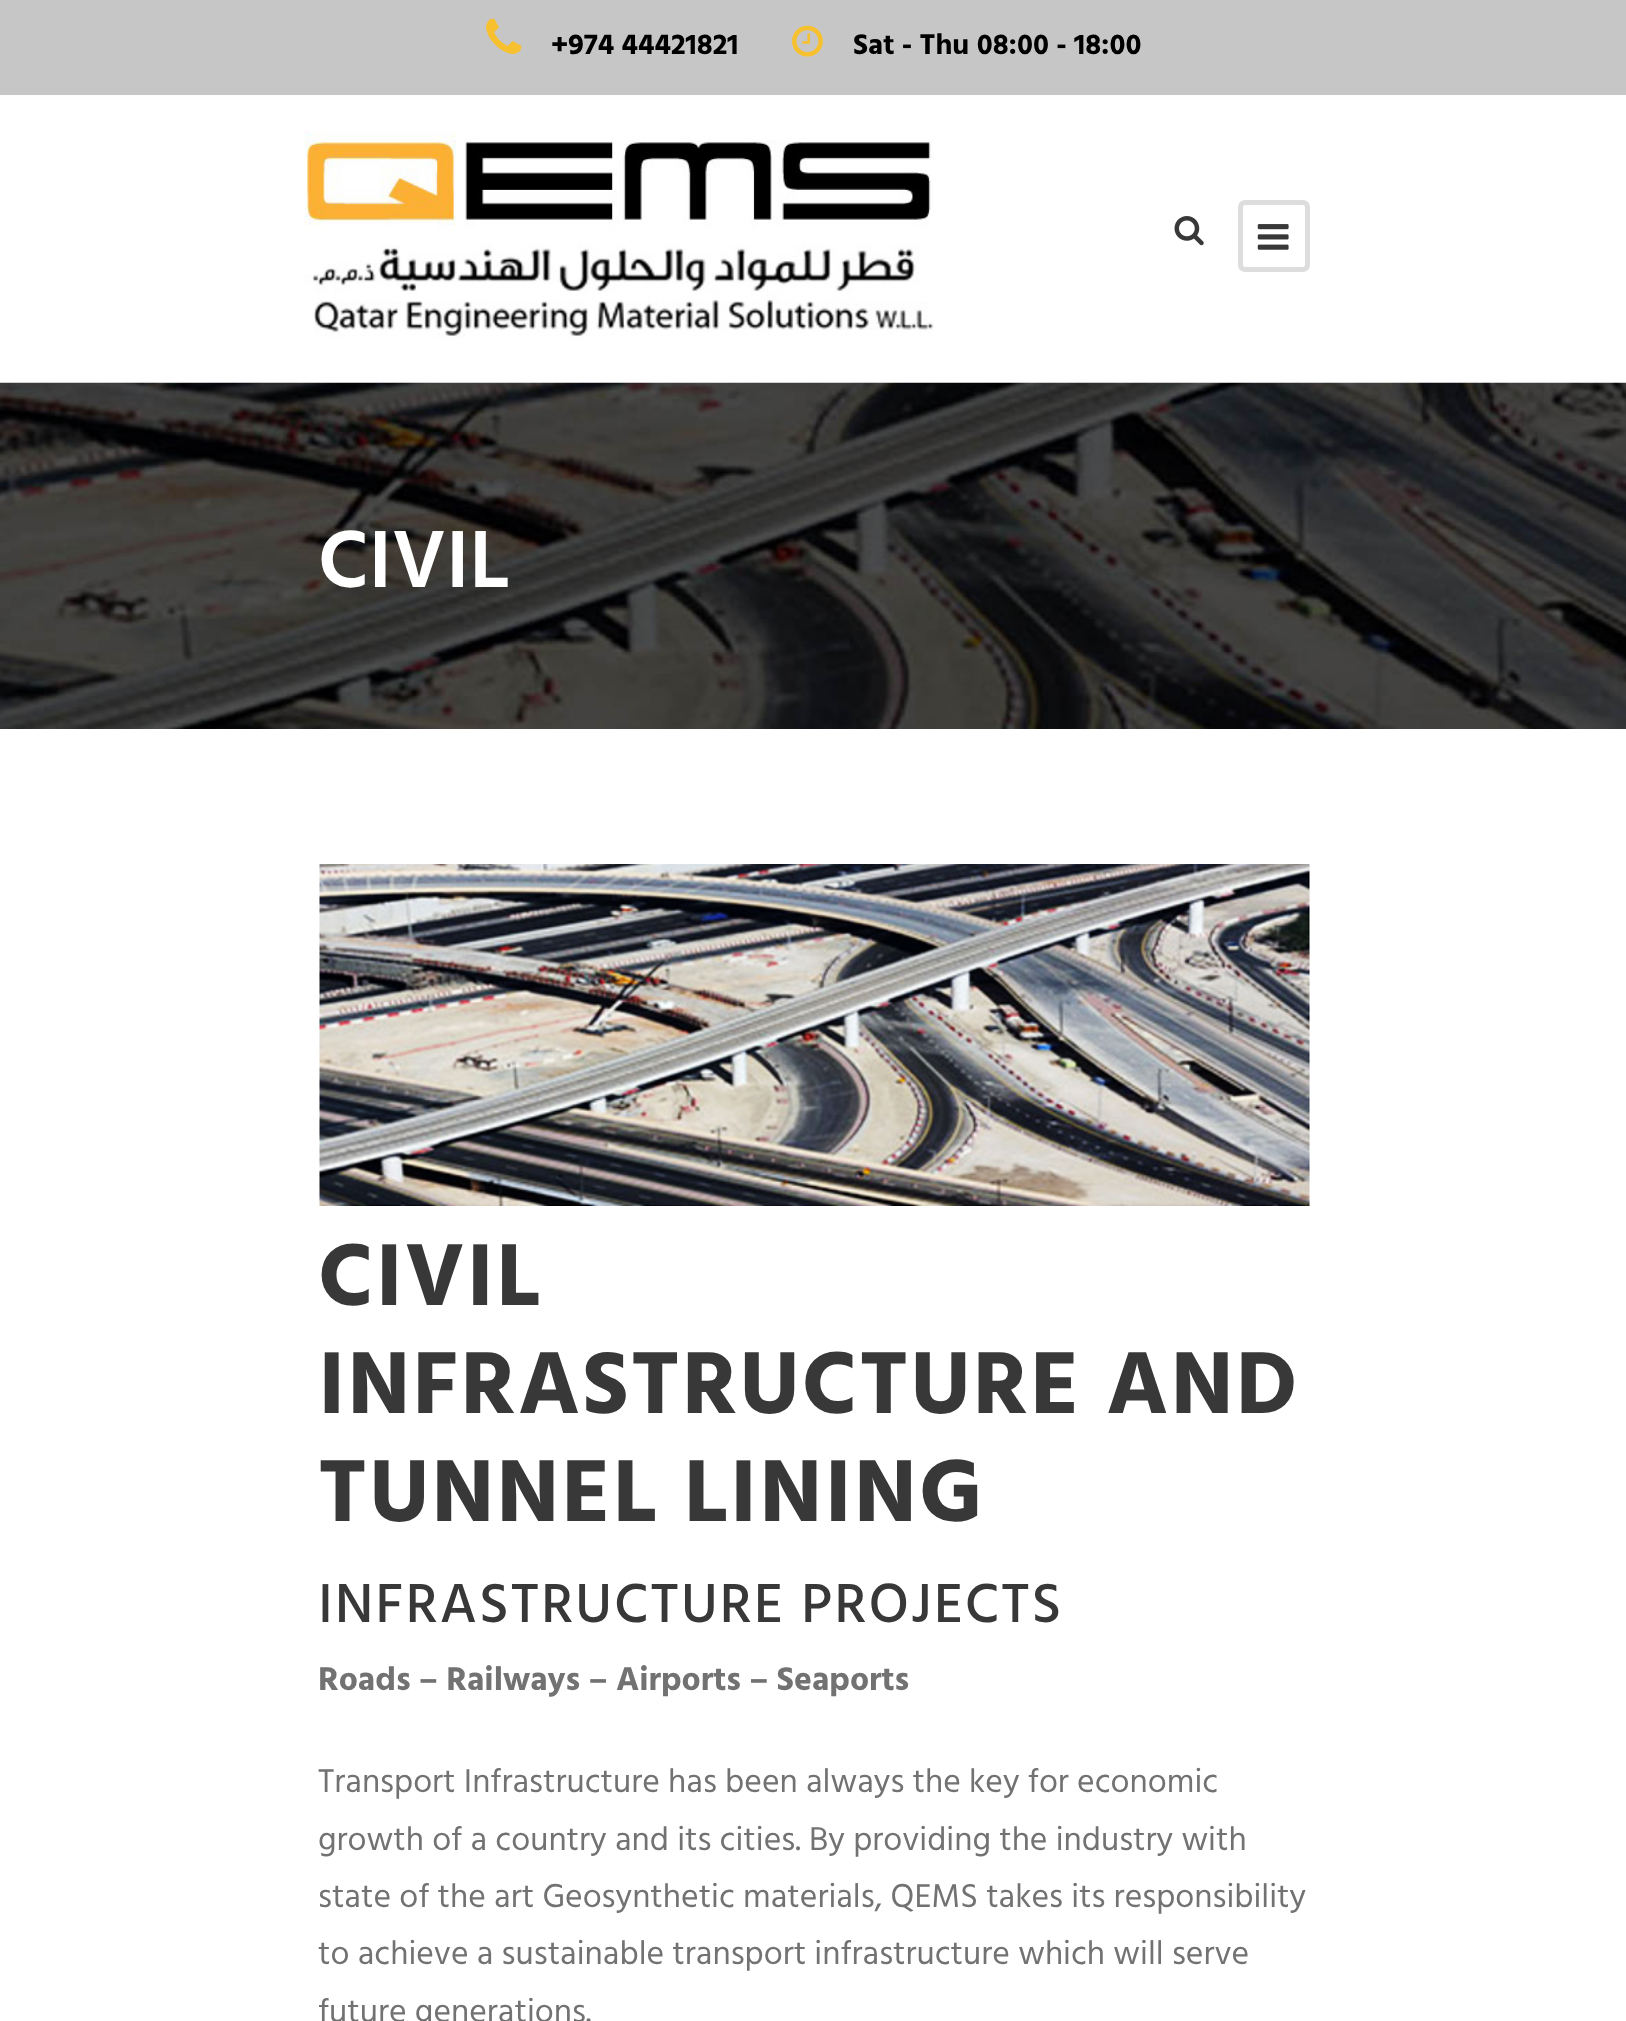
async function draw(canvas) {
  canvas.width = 1626
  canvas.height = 2021
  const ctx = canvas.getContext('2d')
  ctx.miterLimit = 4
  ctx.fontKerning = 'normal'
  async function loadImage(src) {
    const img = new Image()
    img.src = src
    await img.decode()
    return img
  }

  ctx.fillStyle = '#fff'
  ctx.fillRect(0, 0, 1626, 2021)
  ctx.fillStyle = '#c6c6c6'
  ctx.fillRect(0, 0, 1626, 95)
  ctx.drawImage(await loadImage('image0.png'), 486, 18, 36, 36)
  ctx.font = 'bold 29.25px Hind'
  ctx.fillStyle = '#000'
  ctx.fillText('+974 44421821', 551, 54)
  ctx.drawImage(await loadImage('image1.png'), 792, 25, 31, 32)
  ctx.fillText('Sat - Thu 08:00 - 18:00', 853, 54)
  ctx.drawImage(await loadImage('image2.png'), 304, 130, 630, 209)
  ctx.drawImage(await loadImage('image3.png'), 1174, 216, 30, 30)
  ctx.beginPath()
  ctx.roundRect(1240.5, 202.5, 67, 67, 4.5)
  ctx.strokeStyle = '#ddd'
  ctx.lineWidth = 5
  ctx.stroke()
  ctx.drawImage(await loadImage('image4.png'), 1257, 224, 32, 26)
  ctx.drawImage(await loadImage('image5.png'), 0, 382, 1626, 347)
  ctx.font = '600 83px Hind'
  ctx.fillStyle = '#fff'
  ctx.fillText('CIVIL', 318, 587)
  ctx.drawImage(await loadImage('image6.png'), 319, 864, 991, 342)
  ctx.letterSpacing = '2.25px'
  ctx.font = 'bold 90px Hind'
  ctx.fillStyle = '#383838'
  ctx.fillText('CIVIL', 318, 1305)
  ctx.fillText('INFRASTRUCTURE AND', 318, 1413)
  ctx.fillText('TUNNEL LINING', 318, 1521)
  ctx.font = '500 56.25px Hind'
  ctx.fillText('INFRASTRUCTURE PROJECTS', 318, 1622)
  ctx.letterSpacing = '0px'
  ctx.font = 'bold 33.75px Hind'
  ctx.fillStyle = '#727272'
  ctx.fillText('Roads – Railways – Airports – Seaports', 318, 1690)
  ctx.font = '33.75px Hind'
  ctx.fillText('Transport Infrastructure has been always the key for economic', 318, 1792)
  ctx.fillText('growth of a country and its cities. By providing the industry with', 318, 1850)
  ctx.fillText('state of the art Geosynthetic materials, QEMS takes its responsibility', 318, 1907)
  ctx.fillText('to achieve a sustainable transport infrastructure which will serve', 318, 1964)
  ctx.fillText('future generations.', 318, 2022)
}

draw(document.querySelector('canvas'))
